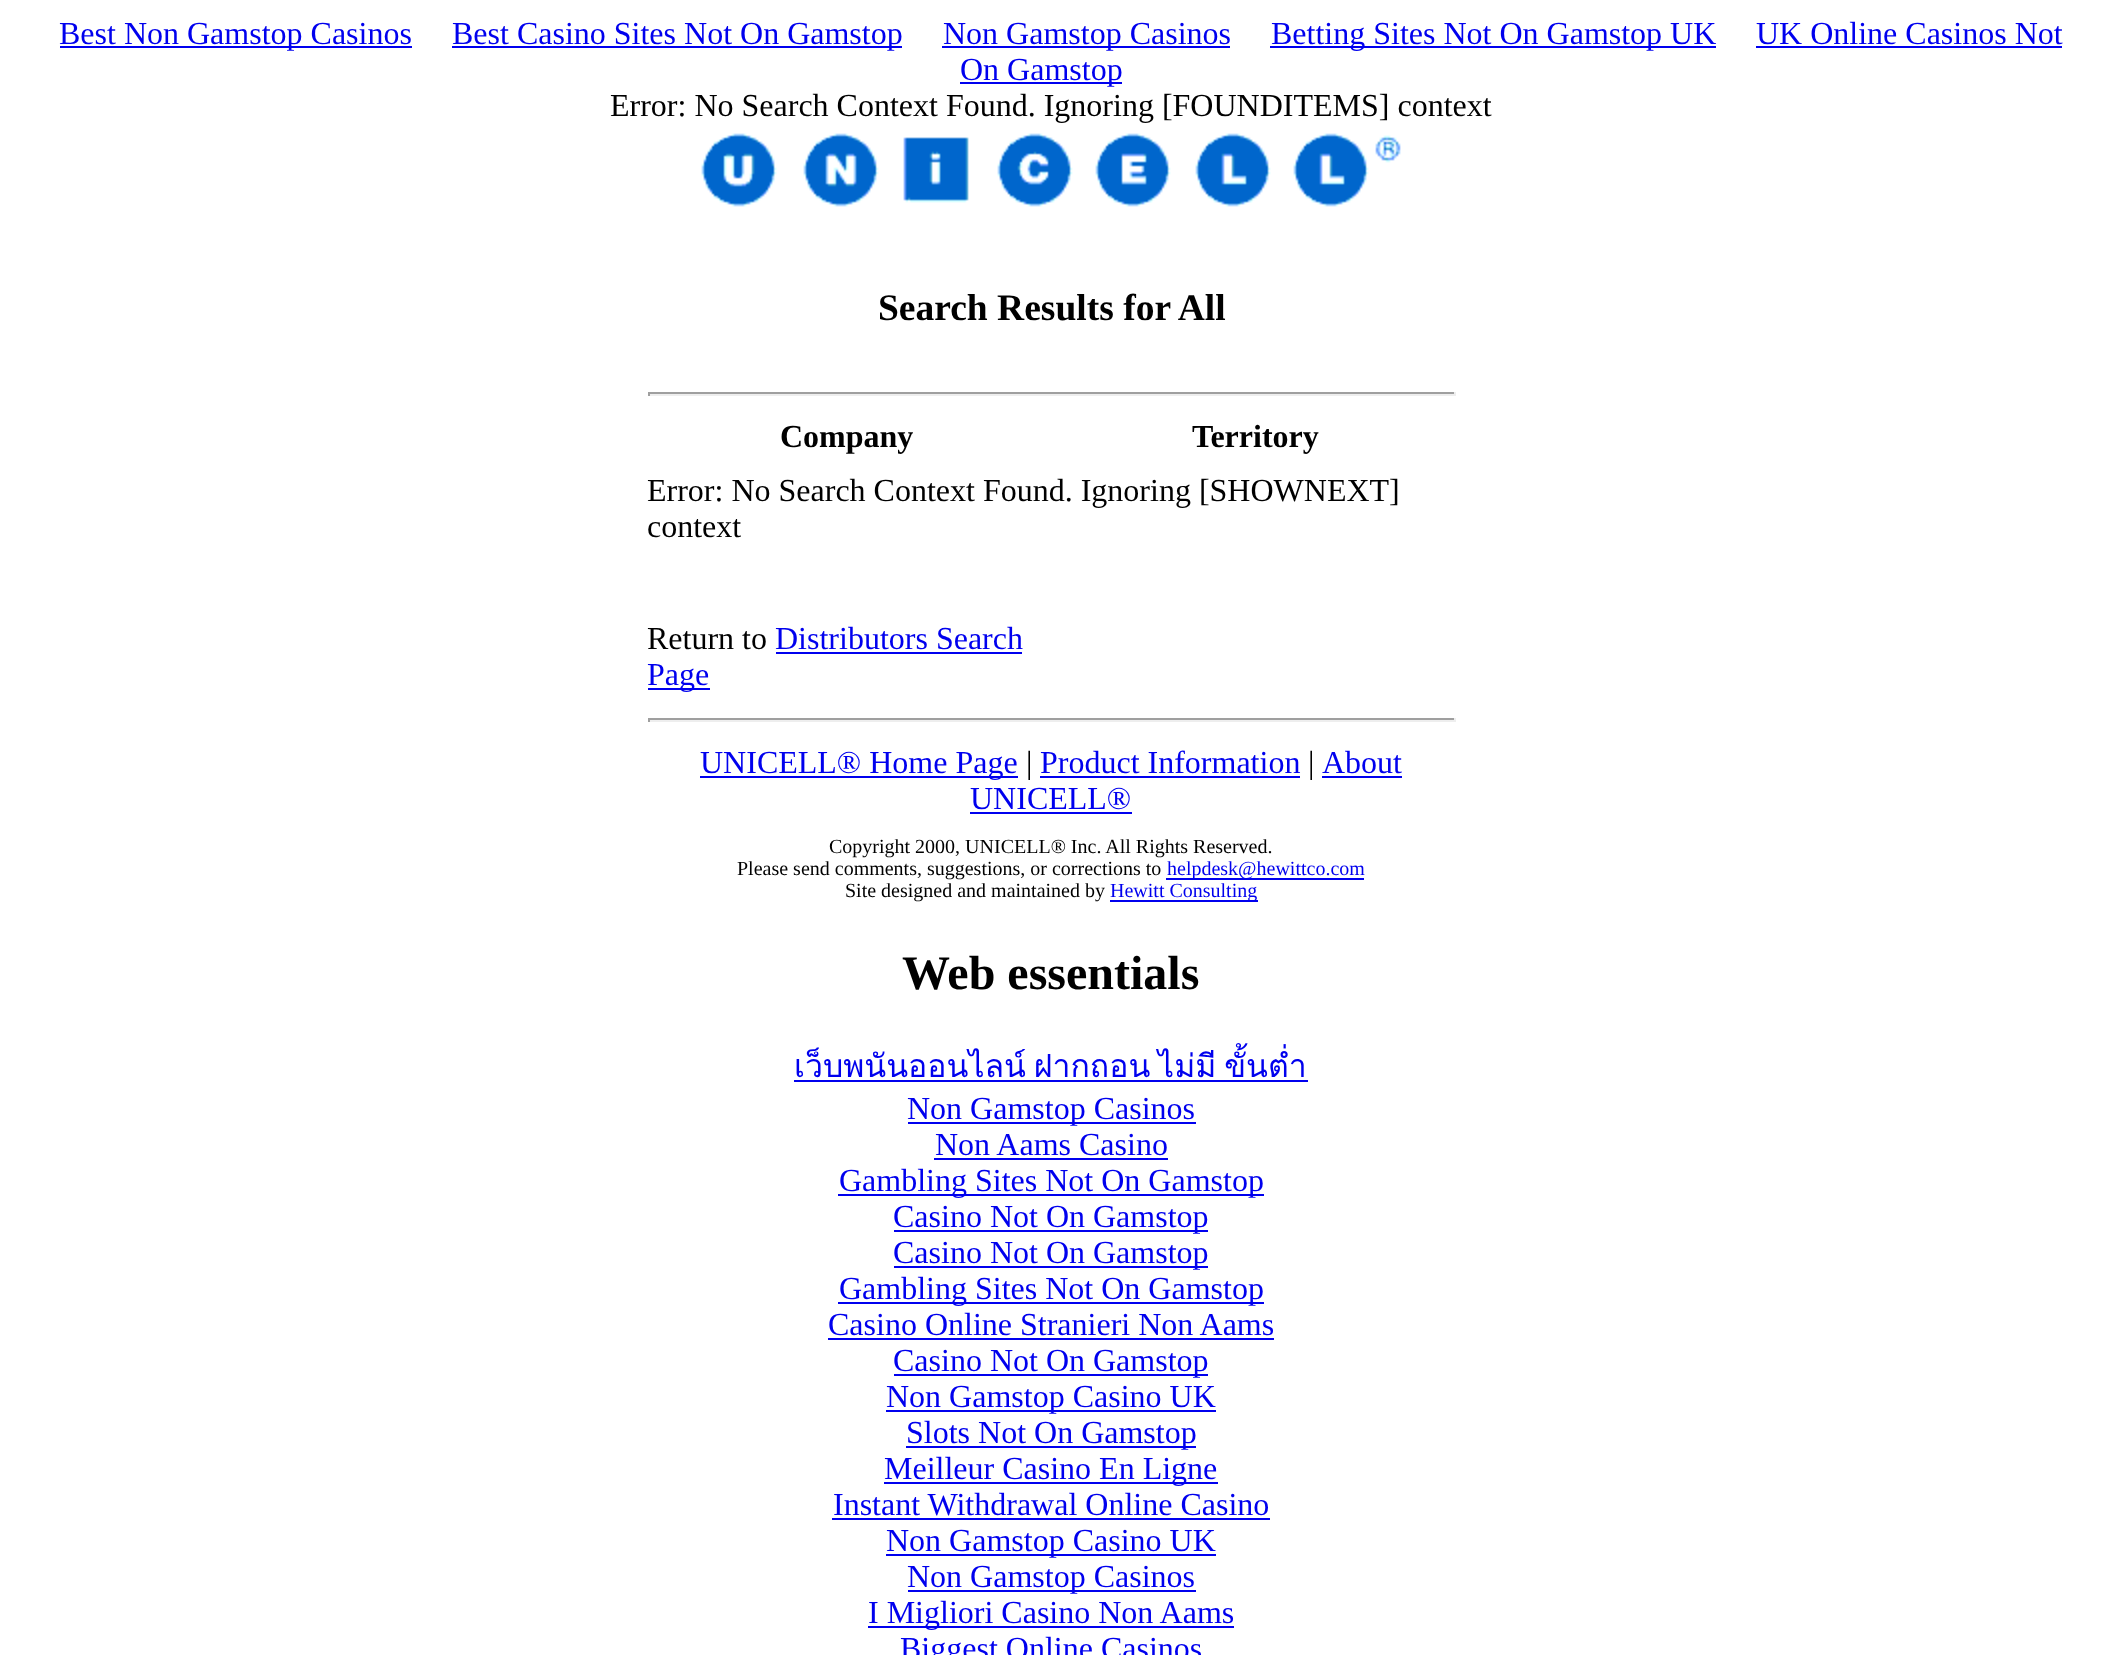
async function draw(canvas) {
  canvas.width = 2101
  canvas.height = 1655
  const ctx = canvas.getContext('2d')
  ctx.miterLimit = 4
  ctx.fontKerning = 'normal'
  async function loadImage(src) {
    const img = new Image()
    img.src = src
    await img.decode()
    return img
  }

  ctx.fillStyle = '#fff'
  ctx.fillRect(0, 0, 2101, 1655)
  ctx.fillStyle = '#00e'
  ctx.fillRect(60, 46, 352, 2)
  ctx.font = '32px Liberation Serif'
  ctx.fillText('Best Non Gamstop Casinos', 59, 44)
  ctx.fillRect(452, 46, 450, 2)
  ctx.fillText('Best Casino Sites Not On Gamstop', 452, 44)
  ctx.fillRect(942, 46, 288, 2)
  ctx.fillText('Non Gamstop Casinos', 943, 44)
  ctx.fillRect(1270, 46, 446, 2)
  ctx.fillText('Betting Sites Not On Gamstop UK', 1271, 44)
  ctx.fillText('UK Online Casinos Not', 1756, 44)
  ctx.fillRect(1756, 46, 306, 2)
  ctx.fillRect(960, 82, 162, 2)
  ctx.fillText('On Gamstop', 960, 80)
  ctx.fillStyle = '#000'
  ctx.fillText('Error: No Search Context Found. Ignoring [FOUNDITEMS] context', 610, 116)
  ctx.drawImage(await loadImage('image0.png'), 701, 133, 700, 74)
  ctx.font = 'bold 37.5px Liberation Serif'
  ctx.fillText('Search Results for All', 878, 320)
  ctx.fillStyle = '#9f9f9f'
  ctx.fillRect(648, 392, 808, 2)
  ctx.fillStyle = '#eee'
  ctx.fillRect(1454, 392, 2, 4)
  ctx.fillRect(648, 394, 808, 2)
  ctx.fillStyle = '#9f9f9f'
  ctx.fillRect(648, 392, 2, 4)
  ctx.font = 'bold 32px Liberation Serif'
  ctx.fillStyle = '#000'
  ctx.fillText('Company', 780, 447)
  ctx.fillText('Territory', 1192, 447)
  ctx.font = '32px Liberation Serif'
  ctx.fillText('Error: No Search Context Found. Ignoring [SHOWNEXT]', 647, 501)
  ctx.fillText('context', 647, 537)
  ctx.fillText('Return to', 647, 649)
  ctx.fillStyle = '#00e'
  ctx.fillText('Distributors Search', 775, 649)
  ctx.fillRect(776, 652, 246, 2)
  ctx.fillRect(648, 688, 62, 2)
  ctx.fillText('Page', 647, 685)
  ctx.fillStyle = '#9f9f9f'
  ctx.fillRect(648, 718, 808, 2)
  ctx.fillStyle = '#eee'
  ctx.fillRect(1454, 718, 2, 4)
  ctx.fillRect(648, 720, 808, 2)
  ctx.fillStyle = '#9f9f9f'
  ctx.fillRect(648, 718, 2, 4)
  ctx.fillStyle = '#00e'
  ctx.fillRect(700, 776, 318, 2)
  ctx.fillText('UNICELL® Home Page', 700, 773)
  ctx.fillStyle = '#000'
  ctx.fillText('|', 1026, 773)
  ctx.fillStyle = '#00e'
  ctx.fillText('Product Information', 1040, 773)
  ctx.fillRect(1040, 776, 260, 2)
  ctx.fillStyle = '#000'
  ctx.fillText('|', 1308, 773)
  ctx.fillStyle = '#00e'
  ctx.fillText('About', 1322, 773)
  ctx.fillRect(1322, 776, 80, 2)
  ctx.fillText('UNICELL®', 970, 809)
  ctx.fillRect(970, 812, 162, 2)
  ctx.font = '20px Liberation Serif'
  ctx.fillStyle = '#000'
  ctx.fillText('Copyright 2000, UNICELL® Inc. All Rights Reserved.', 829, 853)
  ctx.fillText('Please send comments, suggestions, or corrections to', 737, 875)
  ctx.fillStyle = '#00e'
  ctx.fillRect(1166, 878, 198, 2)
  ctx.fillText('helpdesk@hewittco.com', 1167, 875)
  ctx.fillStyle = '#000'
  ctx.fillText('Site designed and maintained by', 845, 897)
  ctx.fillStyle = '#00e'
  ctx.fillRect(1110, 900, 148, 2)
  ctx.fillText('Hewitt Consulting', 1110, 897)
  ctx.font = 'bold 48px Liberation Serif'
  ctx.fillStyle = '#000'
  ctx.fillText('Web essentials', 902, 989)
  ctx.wordSpacing = '-3px'
  ctx.font = '32px Loma'
  ctx.fillStyle = '#00e'
  ctx.fillText('เว็บพนันออนไลน์ ฝากถอน ไม่มี ขั้นต่ำ', 794, 1077)
  ctx.fillRect(794, 1080, 514, 2)
  ctx.fillRect(908, 1122, 288, 2)
  ctx.wordSpacing = '0px'
  ctx.font = '32px Liberation Serif'
  ctx.fillText('Non Gamstop Casinos', 907, 1119)
  ctx.fillText('Non Aams Casino', 935, 1155)
  ctx.fillRect(934, 1158, 234, 2)
  ctx.fillRect(838, 1194, 426, 2)
  ctx.fillText('Gambling Sites Not On Gamstop', 839, 1191)
  ctx.fillRect(894, 1230, 314, 2)
  ctx.fillText('Casino Not On Gamstop', 893, 1227)
  ctx.fillRect(894, 1266, 314, 2)
  ctx.fillText('Casino Not On Gamstop', 893, 1263)
  ctx.fillRect(838, 1302, 426, 2)
  ctx.fillText('Gambling Sites Not On Gamstop', 839, 1299)
  ctx.fillText('Casino Online Stranieri Non Aams', 828, 1335)
  ctx.fillRect(828, 1338, 446, 2)
  ctx.fillRect(894, 1374, 314, 2)
  ctx.fillText('Casino Not On Gamstop', 893, 1371)
  ctx.fillRect(886, 1410, 330, 2)
  ctx.fillText('Non Gamstop Casino UK', 886, 1407)
  ctx.fillRect(906, 1446, 290, 2)
  ctx.fillText('Slots Not On Gamstop', 906, 1443)
  ctx.fillRect(884, 1482, 334, 2)
  ctx.fillText('Meilleur Casino En Ligne', 884, 1479)
  ctx.fillText('Instant Withdrawal Online Casino', 833, 1515)
  ctx.fillRect(832, 1518, 438, 2)
  ctx.fillRect(886, 1554, 330, 2)
  ctx.fillText('Non Gamstop Casino UK', 886, 1551)
  ctx.fillRect(908, 1590, 288, 2)
  ctx.fillText('Non Gamstop Casinos', 907, 1587)
  ctx.fillRect(868, 1626, 366, 2)
  ctx.fillText('I Migliori Casino Non Aams', 868, 1623)
  ctx.fillText('Biggest Online Casinos', 900, 1659)
}

draw(document.querySelector('canvas'))
